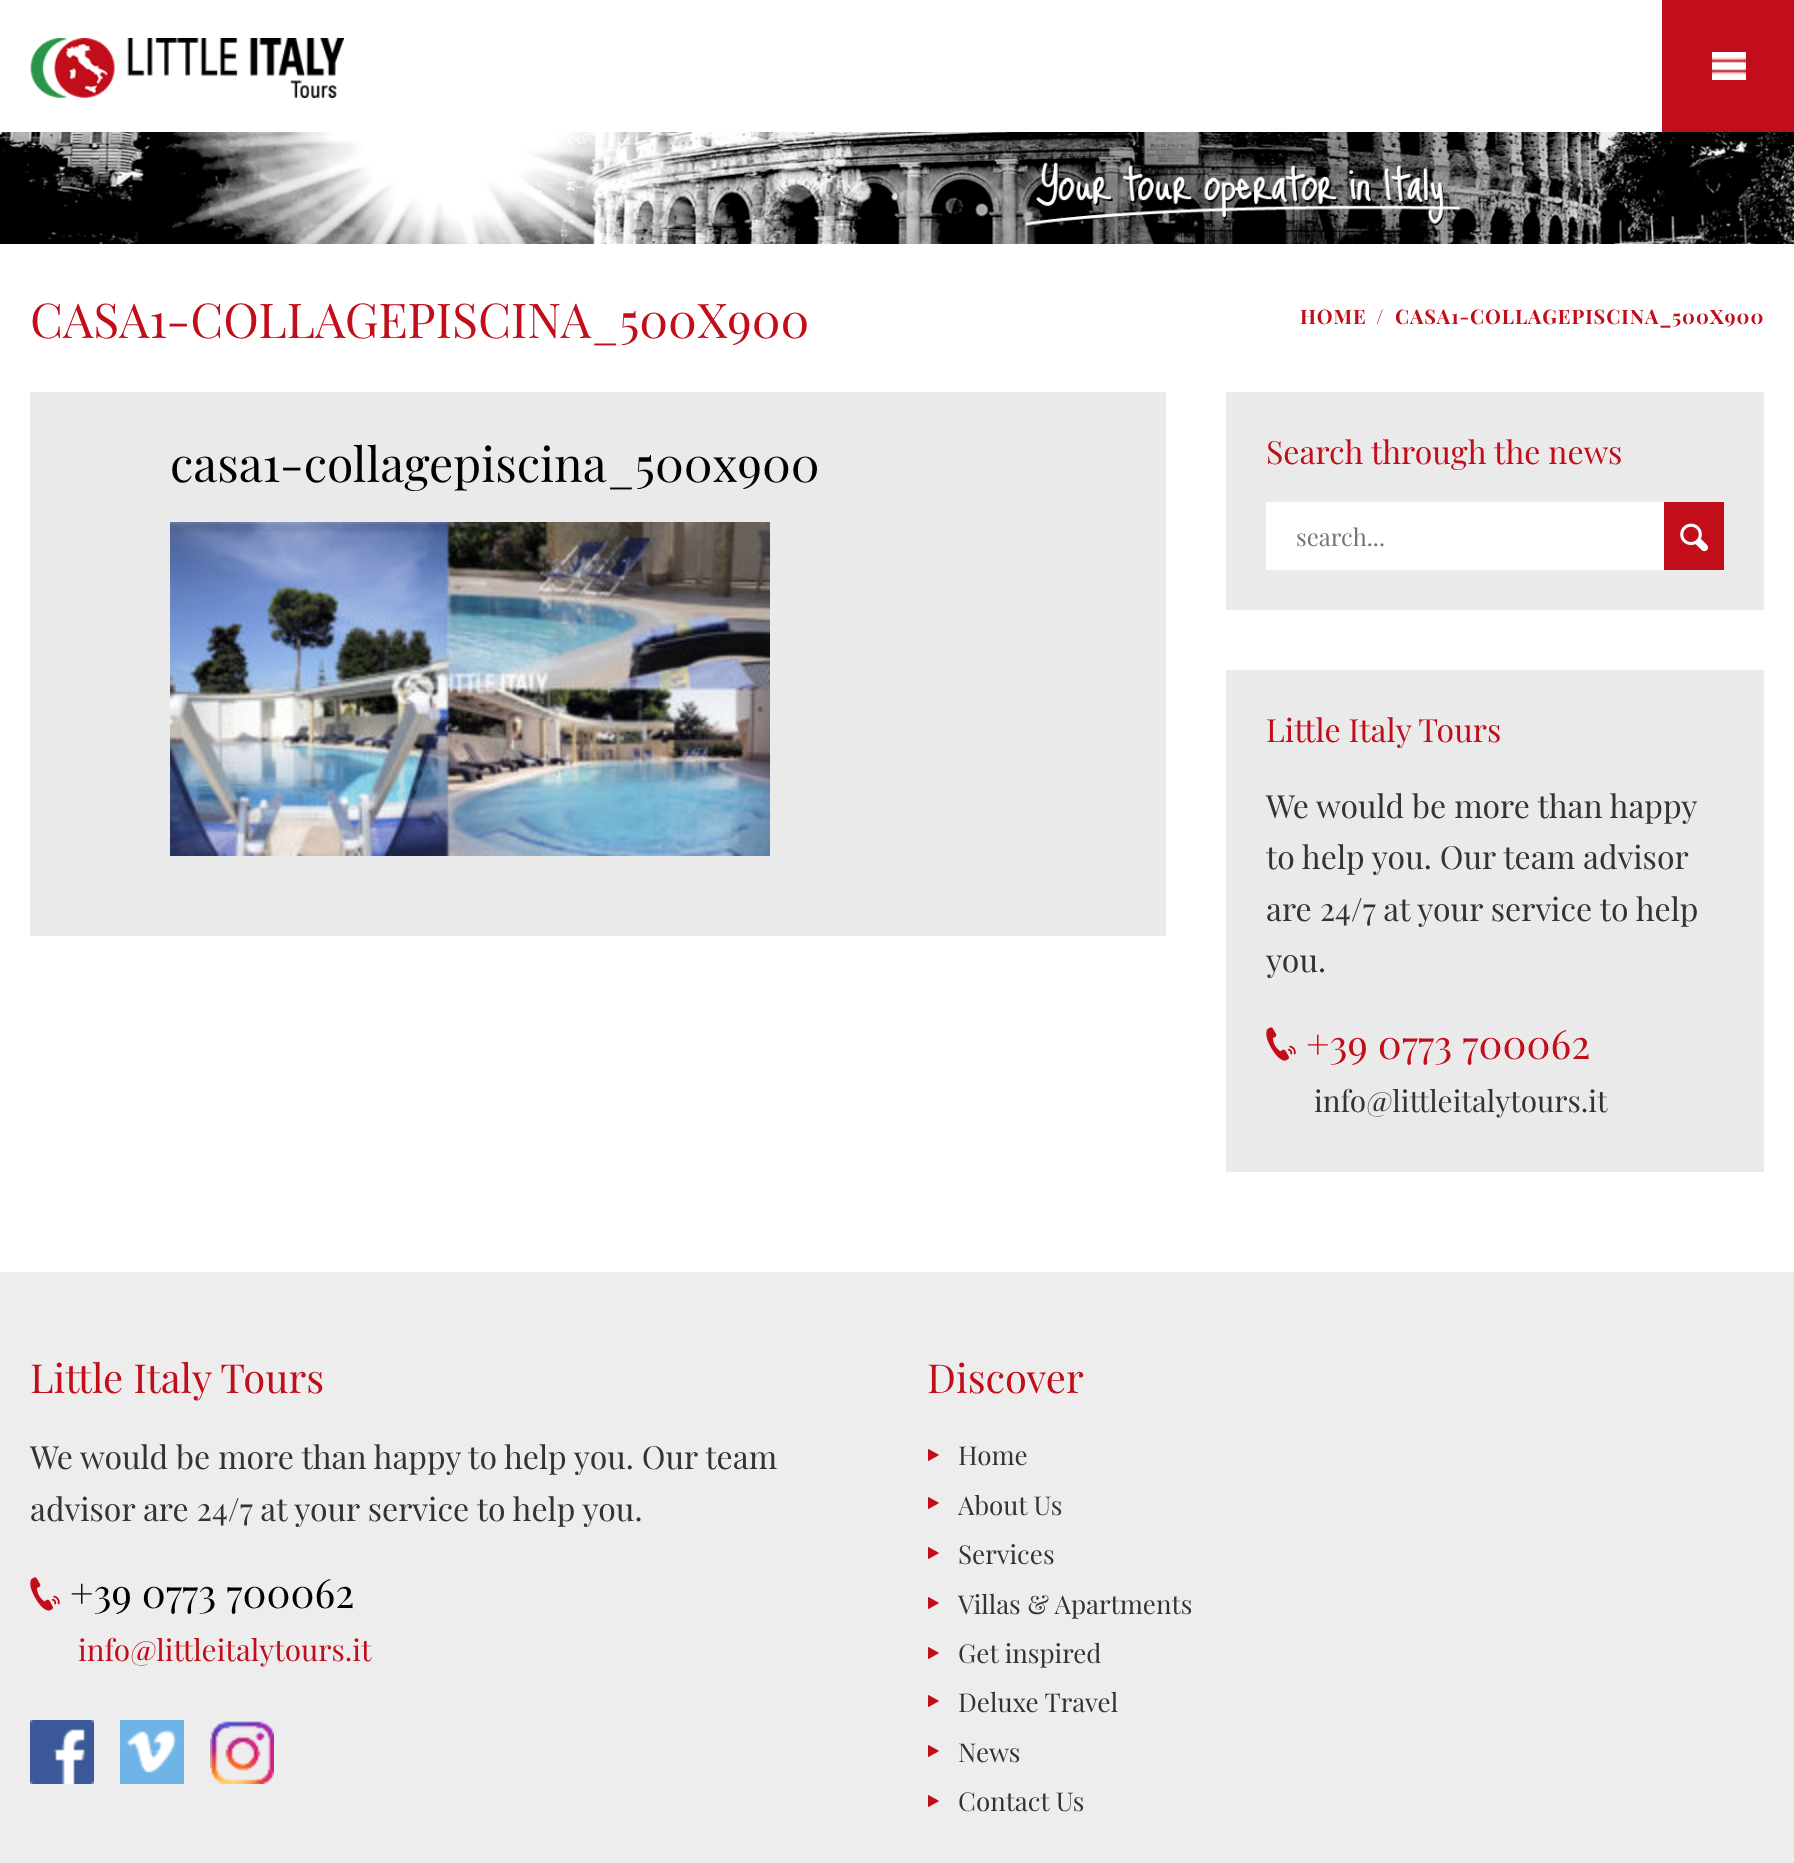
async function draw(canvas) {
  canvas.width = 1794
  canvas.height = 1863
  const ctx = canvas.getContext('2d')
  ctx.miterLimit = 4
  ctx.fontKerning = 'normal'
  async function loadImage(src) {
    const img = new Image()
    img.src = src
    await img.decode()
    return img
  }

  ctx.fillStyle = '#fff'
  ctx.fillRect(0, 0, 1794, 1863)
  ctx.drawImage(await loadImage('image0.png'), 30, 38, 314, 60)
  ctx.fillStyle = '#c20e1a'
  ctx.fillRect(1662, 0, 132, 132)
  ctx.drawImage(await loadImage('image1.png'), 1712, 52, 34, 28)
  ctx.drawImage(await loadImage('image2.png'), 0, 132, 1794, 112)
  ctx.font = '48px Playfair Display'
  ctx.fillText('CASA1-COLLAGEPISCINA_500X900', 30, 338)
  ctx.letterSpacing = '0.95px'
  ctx.font = 'bold 20px Playfair Display'
  ctx.fillText('HOME', 1300, 324)
  ctx.fillText('/', 1376, 324)
  ctx.fillText('CASA1-COLLAGEPISCINA_500X900', 1395, 324)
  ctx.fillStyle = '#eaeaea'
  ctx.fillRect(30, 392, 1136, 544)
  ctx.letterSpacing = '0px'
  ctx.font = '48px Playfair Display'
  ctx.fillStyle = '#000'
  ctx.fillText('casa1-collagepiscina_500x900', 170, 482)
  ctx.drawImage(await loadImage('image3.png'), 170, 522, 600, 334)
  ctx.fillStyle = '#eaeaea'
  ctx.fillRect(1226, 392, 538, 218)
  ctx.font = '32px Playfair Display'
  ctx.fillStyle = '#c20e1a'
  ctx.fillText('Search through the news', 1266, 464)
  ctx.fillStyle = '#fff'
  ctx.fillRect(1266, 502, 398, 68)
  ctx.font = '24px Playfair Display'
  ctx.fillStyle = '#757575'
  ctx.fillText('search...', 1296, 546)
  ctx.fillStyle = '#c20e1a'
  ctx.fillRect(1664, 502, 60, 68)
  ctx.drawImage(await loadImage('image4.png'), 1680, 523, 29, 29)
  ctx.fillStyle = '#eaeaea'
  ctx.fillRect(1226, 670, 538, 502)
  ctx.font = '32px Playfair Display'
  ctx.fillStyle = '#c20e1a'
  ctx.fillText('Little Italy Tours', 1266, 742)
  ctx.fillStyle = '#333'
  ctx.fillText('We would be more than happy', 1266, 818)
  ctx.fillText('to help you. Our team advisor', 1266, 869)
  ctx.fillText('are 24/7 at your service to help', 1266, 921)
  ctx.fillText('you.', 1266, 972)
  ctx.drawImage(await loadImage('image5.png'), 1266, 1027, 30, 34)
  ctx.font = '40px Playfair Display'
  ctx.fillStyle = '#c20e1a'
  ctx.fillText('+39 0773 700062', 1306, 1059)
  ctx.font = '29.75px Playfair Display'
  ctx.fillStyle = '#333'
  ctx.fillText('info@littleitalytours.it', 1314, 1112)
  ctx.fillStyle = '#ededed'
  ctx.fillRect(0, 1272, 1794, 591)
  ctx.font = '40px Playfair Display'
  ctx.fillStyle = '#c20e1a'
  ctx.fillText('Little Italy Tours', 30, 1393)
  ctx.font = '32px Playfair Display'
  ctx.fillStyle = '#333'
  ctx.fillText('We would be more than happy to help you. Our team', 30, 1469)
  ctx.fillText('advisor are 24/7 at your service to help you.', 30, 1521)
  ctx.drawImage(await loadImage('image6.png'), 30, 1577, 30, 34)
  ctx.font = '40px Playfair Display'
  ctx.fillStyle = '#000'
  ctx.fillText('+39 0773 700062', 70, 1608)
  ctx.font = '29.75px Playfair Display'
  ctx.fillStyle = '#c20e1a'
  ctx.fillText('info@littleitalytours.it', 78, 1661)
  ctx.drawImage(await loadImage('image7.png'), 30, 1720, 64, 64)
  ctx.drawImage(await loadImage('image8.png'), 120, 1720, 64, 64)
  ctx.drawImage(await loadImage('image9.png'), 210, 1721, 64, 63)
  ctx.font = '40px Playfair Display'
  ctx.fillText('Discover', 927, 1393)
  ctx.drawImage(await loadImage('image10.png'), 928, 1449, 11, 12)
  ctx.font = '26px Playfair Display'
  ctx.fillStyle = '#333'
  ctx.fillText('Home', 958, 1465)
  ctx.drawImage(await loadImage('image10.png'), 928, 1497, 11, 12)
  ctx.fillText('About Us', 958, 1515)
  ctx.drawImage(await loadImage('image10.png'), 928, 1547, 11, 12)
  ctx.fillText('Services', 958, 1564)
  ctx.drawImage(await loadImage('image10.png'), 928, 1597, 11, 12)
  ctx.fillText('Villas & Apartments', 958, 1614)
  ctx.drawImage(await loadImage('image10.png'), 928, 1647, 11, 12)
  ctx.fillText('Get inspired', 958, 1663)
  ctx.drawImage(await loadImage('image10.png'), 928, 1695, 11, 12)
  ctx.fillText('Deluxe Travel', 958, 1712)
  ctx.drawImage(await loadImage('image10.png'), 928, 1745, 11, 12)
  ctx.fillText('News', 958, 1762)
  ctx.drawImage(await loadImage('image10.png'), 928, 1795, 11, 12)
  ctx.fillText('Contact Us', 958, 1811)
}

draw(document.querySelector('canvas'))
